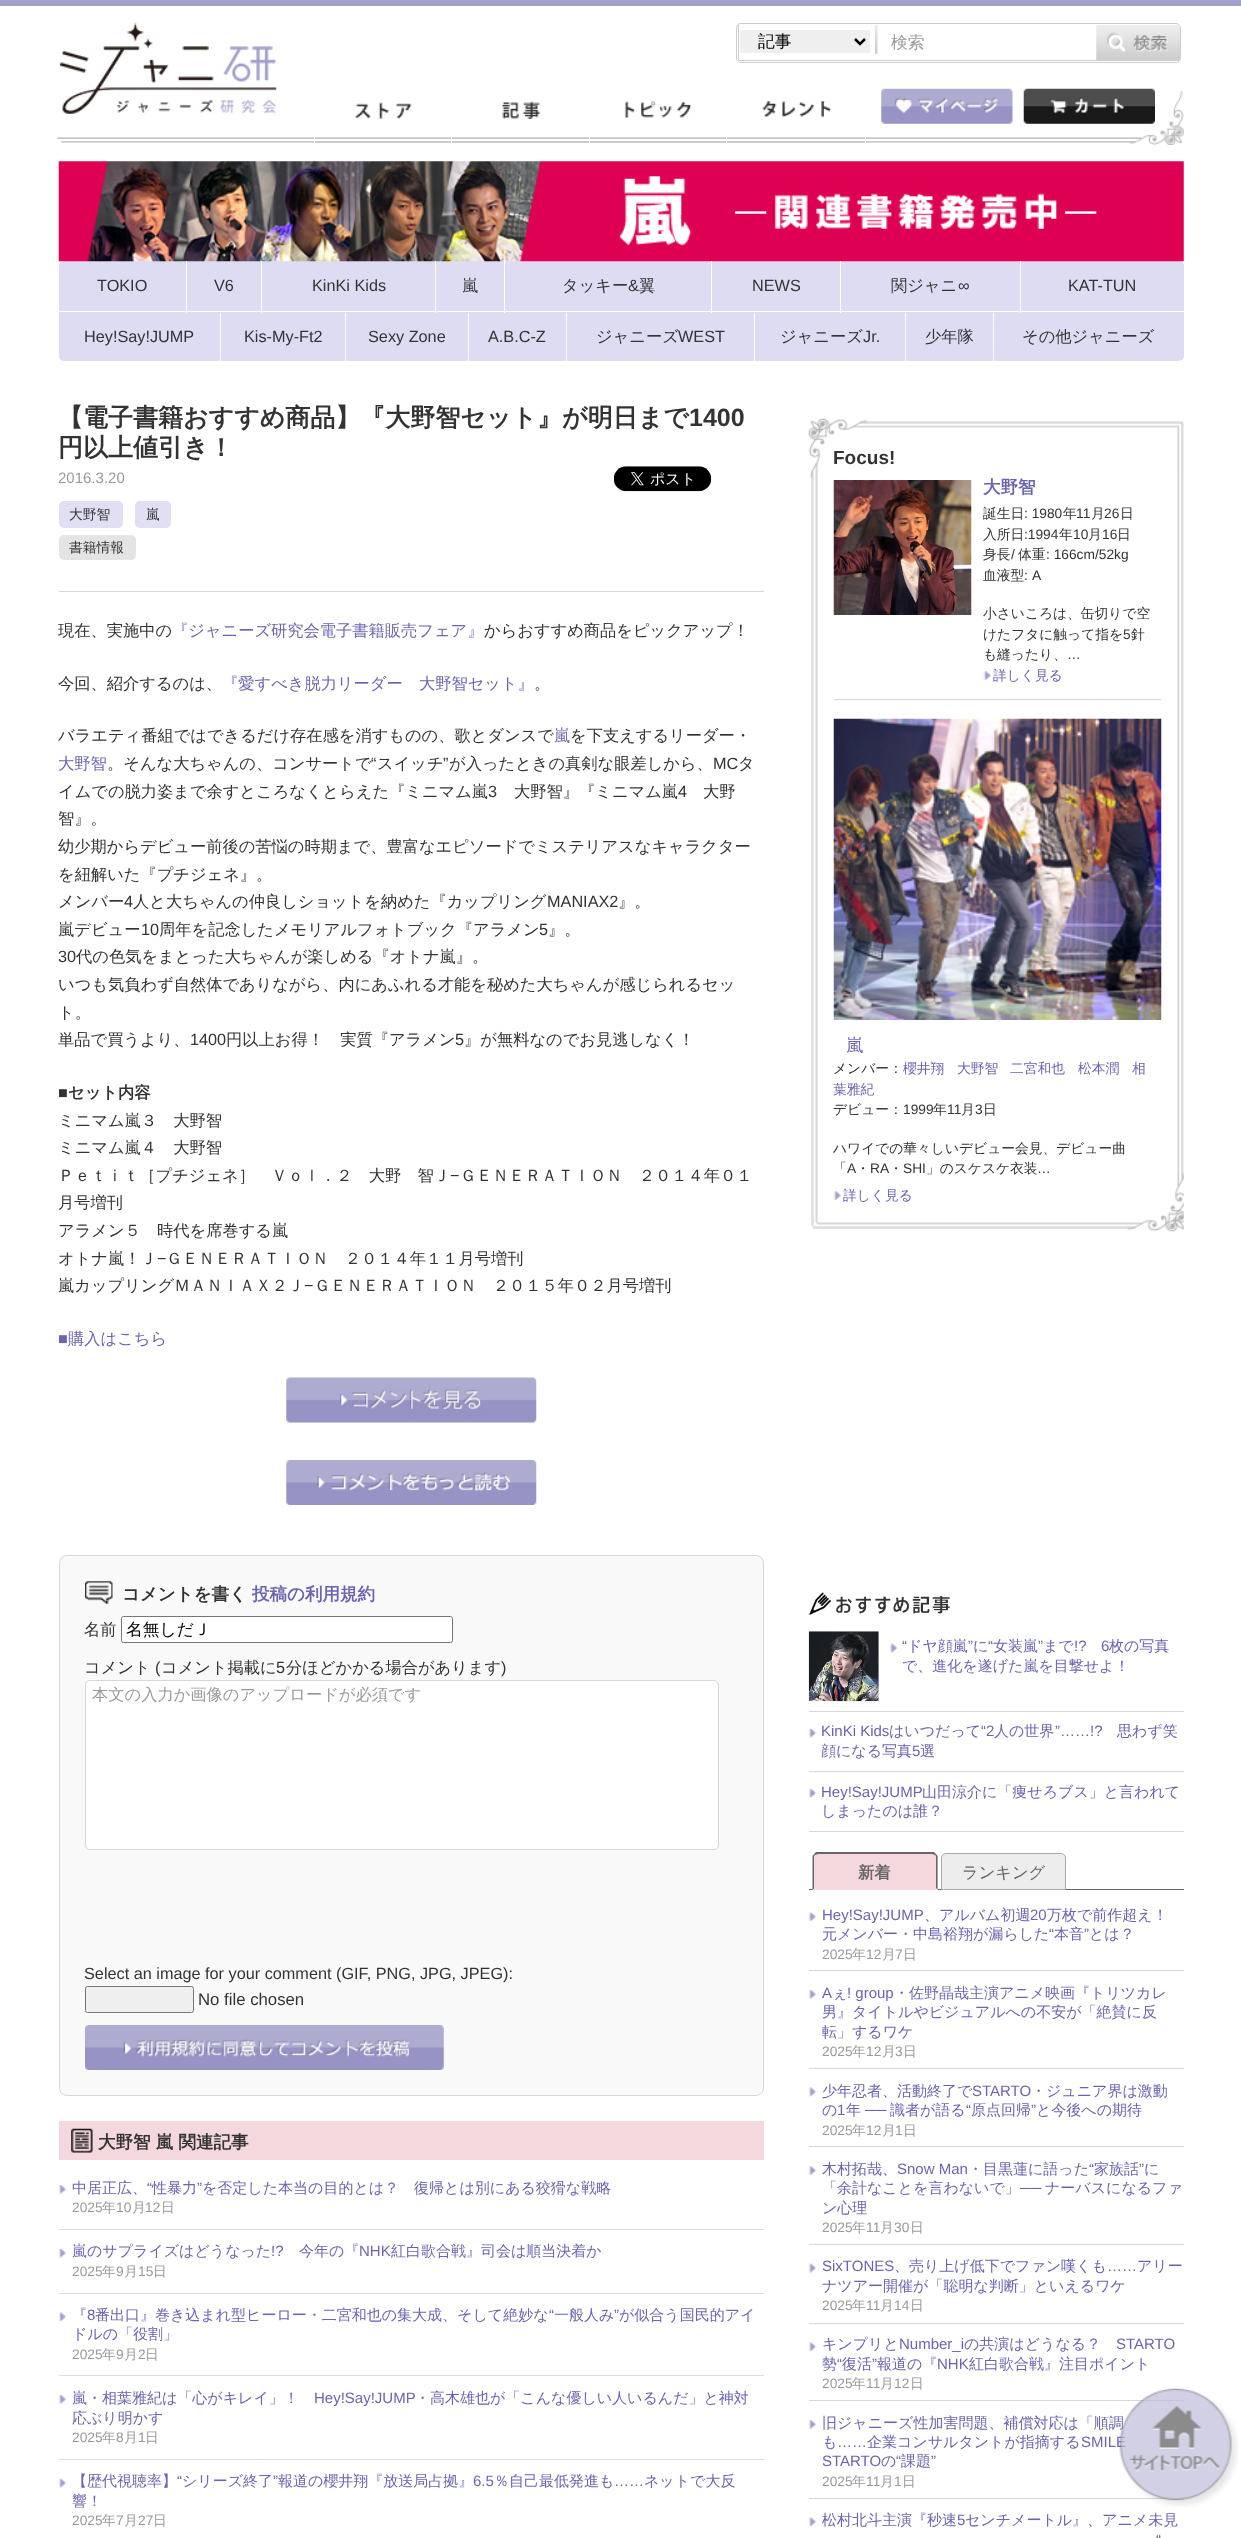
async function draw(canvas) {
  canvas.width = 1241
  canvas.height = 2538
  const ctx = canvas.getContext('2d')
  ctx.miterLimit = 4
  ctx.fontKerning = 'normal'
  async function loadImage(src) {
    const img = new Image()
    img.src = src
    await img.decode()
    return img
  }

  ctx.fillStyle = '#fff'
  ctx.fillRect(0, 0, 1241, 2538)
  ctx.fillStyle = '#a29fca'
  ctx.fillRect(0, 0, 1241, 6)
  ctx.drawImage(await loadImage('image0.png'), 57, 91, 1127, 54)
  ctx.drawImage(await loadImage('image1.png'), 59, 22, 218, 92)
  ctx.beginPath()
  ctx.roundRect(736.5, 23.5, 444, 39, 4.5)
  ctx.strokeStyle = '#cdcdcd'
  ctx.stroke()
  ctx.fillStyle = '#cdcdcd'
  ctx.fillRect(739, 60, 440, 1)
  ctx.fillRect(738, 25, 1, 35)
  ctx.drawImage(await loadImage('image2.png'), 875, 25, 3, 29)
  ctx.fillStyle = '#efefef'
  ctx.fillRect(740, 30, 130, 23)
  ctx.beginPath()
  ctx.moveTo(855, 39)
  ctx.lineTo(860, 44)
  ctx.lineTo(865, 39)
  ctx.strokeStyle = '#000'
  ctx.lineWidth = 2.5
  ctx.stroke()
  ctx.font = '500 16.75px WenQuanYi Zen Hei'
  ctx.fillStyle = '#000'
  ctx.fillText('記事', 758, 47)
  ctx.fillStyle = '#999'
  ctx.fillText('検索', 891, 48)
  ctx.drawImage(await loadImage('image3.png'), 1096, 25, 84, 35)
  ctx.fillStyle = '#fff'
  ctx.fillRect(865, 137, 1, 6)
  ctx.drawImage(await loadImage('image4.png'), 315, 102, 136, 41)
  ctx.fillRect(314, 137, 1, 6)
  ctx.drawImage(await loadImage('image5.png'), 452, 101, 137, 42)
  ctx.fillRect(451, 137, 1, 6)
  ctx.drawImage(await loadImage('image6.png'), 590, 101, 136, 42)
  ctx.fillRect(589, 137, 1, 6)
  ctx.drawImage(await loadImage('image7.png'), 727, 101, 137, 42)
  ctx.fillRect(726, 137, 1, 6)
  ctx.drawImage(await loadImage('image8.png'), 881, 88, 132, 36)
  ctx.drawImage(await loadImage('image9.png'), 1023, 88, 132, 36)
  ctx.fillStyle = '#dddcf3'
  ctx.beginPath()
  ctx.roundRect(59, 261, 1125, 100, 5)
  ctx.fill()
  ctx.drawImage(await loadImage('image10.png'), 58, 161, 1126, 101)
  ctx.fillStyle = '#fff'
  ctx.fillRect(59, 311, 1125, 1)
  ctx.font = '16.25px Liberation Sans'
  ctx.fillStyle = '#333'
  ctx.fillText('TOKIO', 97, 291)
  ctx.fillStyle = '#fff'
  ctx.fillRect(186, 261, 1, 52)
  ctx.fillStyle = '#333'
  ctx.fillText('V6', 214, 291)
  ctx.fillStyle = '#fff'
  ctx.fillRect(261, 261, 1, 52)
  ctx.fillStyle = '#333'
  ctx.fillText('KinKi Kids', 312, 291)
  ctx.fillStyle = '#fff'
  ctx.fillRect(435, 261, 1, 52)
  ctx.font = '500 16.25px WenQuanYi Zen Hei'
  ctx.fillStyle = '#333'
  ctx.fillText('嵐', 462, 291)
  ctx.fillStyle = '#fff'
  ctx.fillRect(504, 261, 1, 52)
  ctx.fillStyle = '#333'
  ctx.fillText('タッキー', 562, 291)
  ctx.font = '16.25px Liberation Sans'
  ctx.fillText('&', 628, 291)
  ctx.font = '500 16.25px WenQuanYi Zen Hei'
  ctx.fillText('翼', 639, 291)
  ctx.fillStyle = '#fff'
  ctx.fillRect(711, 261, 1, 52)
  ctx.font = '16.25px Liberation Sans'
  ctx.fillStyle = '#333'
  ctx.fillText('NEWS', 752, 291)
  ctx.fillStyle = '#fff'
  ctx.fillRect(840, 261, 1, 52)
  ctx.font = '500 16.25px WenQuanYi Zen Hei'
  ctx.fillStyle = '#333'
  ctx.fillText('関ジャニ', 891, 291)
  ctx.font = '16.25px Liberation Sans'
  ctx.fillText('∞', 958, 291)
  ctx.fillStyle = '#fff'
  ctx.fillRect(1020, 261, 1, 52)
  ctx.fillStyle = '#333'
  ctx.fillText('KAT-TUN', 1068, 291)
  ctx.fillText('Hey!Say!JUMP', 84, 342)
  ctx.fillStyle = '#fff'
  ctx.fillRect(220, 313, 1, 48)
  ctx.fillStyle = '#333'
  ctx.fillText('Kis-My-Ft2', 244, 342)
  ctx.fillStyle = '#fff'
  ctx.fillRect(345, 313, 1, 48)
  ctx.fillStyle = '#333'
  ctx.fillText('Sexy Zone', 368, 342)
  ctx.fillStyle = '#fff'
  ctx.fillRect(468, 313, 1, 48)
  ctx.fillStyle = '#333'
  ctx.fillText('A.B.C-Z', 488, 342)
  ctx.fillStyle = '#fff'
  ctx.fillRect(566, 313, 1, 48)
  ctx.font = '500 16.25px WenQuanYi Zen Hei'
  ctx.fillStyle = '#333'
  ctx.fillText('ジャニーズ', 596, 342)
  ctx.font = '16.25px Liberation Sans'
  ctx.fillText('WEST', 678, 342)
  ctx.fillStyle = '#fff'
  ctx.fillRect(754, 313, 1, 48)
  ctx.font = '500 16.25px WenQuanYi Zen Hei'
  ctx.fillStyle = '#333'
  ctx.fillText('ジャニーズ', 780, 342)
  ctx.font = '16.25px Liberation Sans'
  ctx.fillText('Jr.', 863, 342)
  ctx.fillStyle = '#fff'
  ctx.fillRect(905, 313, 1, 48)
  ctx.font = '500 16.25px WenQuanYi Zen Hei'
  ctx.fillStyle = '#333'
  ctx.fillText('少年隊', 925, 342)
  ctx.fillStyle = '#fff'
  ctx.fillRect(993, 313, 1, 48)
  ctx.fillStyle = '#333'
  ctx.fillText('その他ジャニーズ', 1022, 342)
  ctx.fillStyle = '#d7d7d7'
  ctx.fillRect(59, 591, 705, 1)
  ctx.font = 'bold 25px WenQuanYi Zen Hei'
  ctx.fillStyle = '#333'
  ctx.fillText('【電子書籍おすすめ商品】『大野智セット』が明日まで', 58, 426)
  ctx.font = 'bold 25px Liberation Sans'
  ctx.fillText('1400', 689, 426)
  ctx.font = 'bold 25px WenQuanYi Zen Hei'
  ctx.fillText('円以上値引き！', 58, 456)
  ctx.font = '15px Liberation Sans'
  ctx.fillStyle = '#999'
  ctx.fillText('2016.3.20', 58, 483)
  ctx.drawImage(await loadImage('image11.png'), 613, 466, 99, 26)
  ctx.fillStyle = '#e0dff4'
  ctx.beginPath()
  ctx.roundRect(59, 501, 64, 27, 5)
  ctx.fill()
  ctx.font = '500 13.75px WenQuanYi Zen Hei'
  ctx.fillStyle = '#333'
  ctx.fillText('大野智', 69, 519)
  ctx.fillStyle = '#e0dff4'
  ctx.beginPath()
  ctx.roundRect(135, 501, 36, 27, 5)
  ctx.fill()
  ctx.fillStyle = '#333'
  ctx.fillText('嵐', 146, 519)
  ctx.fillStyle = '#e4e4e4'
  ctx.beginPath()
  ctx.roundRect(59, 535, 77, 25, 5)
  ctx.fill()
  ctx.fillStyle = '#333'
  ctx.fillText('書籍情報', 69, 552)
  ctx.font = '500 16.25px WenQuanYi Zen Hei'
  ctx.fillText('現在、実施中の', 58, 636)
  ctx.fillStyle = '#6a65b1'
  ctx.fillText('『ジャニーズ研究会電子書籍販売フェア』', 172, 636)
  ctx.fillStyle = '#333'
  ctx.fillText('からおすすめ商品をピックアップ！', 484, 636)
  ctx.fillText('今回、紹介するのは、', 58, 689)
  ctx.fillStyle = '#6a65b1'
  ctx.fillText('『愛すべき脱力リーダー　大野智セット』', 222, 689)
  ctx.fillStyle = '#333'
  ctx.fillText('。', 534, 689)
  ctx.fillText('バラエティ番組ではできるだけ存在感を消すものの、歌とダンスで', 58, 741)
  ctx.fillStyle = '#6a65b1'
  ctx.fillText('嵐', 554, 741)
  ctx.fillStyle = '#333'
  ctx.fillText('を下支えするリーダー・', 570, 741)
  ctx.fillStyle = '#6a65b1'
  ctx.fillText('大野智', 58, 769)
  ctx.fillStyle = '#333'
  ctx.fillText('。そんな大ちゃんの、コンサートで', 107, 769)
  ctx.font = '16.25px Liberation Sans'
  ctx.fillText('“', 371, 769)
  ctx.font = '500 16.25px WenQuanYi Zen Hei'
  ctx.fillText('スイッチ', 377, 769)
  ctx.font = '16.25px Liberation Sans'
  ctx.fillText('”', 443, 769)
  ctx.font = '500 16.25px WenQuanYi Zen Hei'
  ctx.fillText('が入ったときの真剣な眼差しから、', 449, 769)
  ctx.font = '16.25px Liberation Sans'
  ctx.fillText('MC', 713, 769)
  ctx.font = '500 16.25px WenQuanYi Zen Hei'
  ctx.fillText('タ', 738, 769)
  ctx.fillText('イムでの脱力姿まで余すところなくとらえた『ミニマム嵐', 58, 797)
  ctx.font = '16.25px Liberation Sans'
  ctx.fillText('3', 488, 797)
  ctx.font = '500 16.25px WenQuanYi Zen Hei'
  ctx.fillText('大野智』『ミニマム嵐', 514, 797)
  ctx.font = '16.25px Liberation Sans'
  ctx.fillText('4', 678, 797)
  ctx.font = '500 16.25px WenQuanYi Zen Hei'
  ctx.fillText('大野', 703, 797)
  ctx.fillText('智』。', 58, 824)
  ctx.fillText('幼少期からデビュー前後の苦悩の時期まで、豊富なエピソードでミステリアスなキャラクター', 58, 852)
  ctx.fillText('を紐解いた『プチジェネ』。', 58, 880)
  ctx.fillText('メンバー', 58, 907)
  ctx.font = '16.25px Liberation Sans'
  ctx.fillText('4', 124, 907)
  ctx.font = '500 16.25px WenQuanYi Zen Hei'
  ctx.fillText('人と大ちゃんの仲良しショットを納めた『カップリング', 133, 907)
  ctx.font = '16.25px Liberation Sans'
  ctx.fillText('MANIAX2', 547, 907)
  ctx.font = '500 16.25px WenQuanYi Zen Hei'
  ctx.fillText('』。', 618, 907)
  ctx.fillText('嵐デビュー', 58, 935)
  ctx.font = '16.25px Liberation Sans'
  ctx.fillText('10', 141, 935)
  ctx.font = '500 16.25px WenQuanYi Zen Hei'
  ctx.fillText('周年を記念したメモリアルフォトブック『アラメン', 159, 935)
  ctx.font = '16.25px Liberation Sans'
  ctx.fillText('5', 539, 935)
  ctx.font = '500 16.25px WenQuanYi Zen Hei'
  ctx.fillText('』。', 548, 935)
  ctx.font = '16.25px Liberation Sans'
  ctx.fillText('30', 58, 962)
  ctx.font = '500 16.25px WenQuanYi Zen Hei'
  ctx.fillText('代の色気をまとった大ちゃんが楽しめる『オトナ嵐』。', 76, 962)
  ctx.fillText('いつも気負わず自然体でありながら、内にあふれる才能を秘めた大ちゃんが感じられるセッ', 58, 990)
  ctx.fillText('ト。', 58, 1018)
  ctx.fillText('単品で買うより、', 58, 1045)
  ctx.font = '16.25px Liberation Sans'
  ctx.fillText('1400', 190, 1045)
  ctx.font = '500 16.25px WenQuanYi Zen Hei'
  ctx.fillText('円以上お得！　実質『アラメン', 226, 1045)
  ctx.font = '16.25px Liberation Sans'
  ctx.fillText('5', 455, 1045)
  ctx.font = '500 16.25px WenQuanYi Zen Hei'
  ctx.fillText('』が無料なのでお見逃しなく！', 464, 1045)
  ctx.font = 'bold 16.25px Liberation Sans'
  ctx.fillText('■', 58, 1098)
  ctx.font = 'bold 16.25px WenQuanYi Zen Hei'
  ctx.fillText('セット内容', 68, 1098)
  ctx.font = '500 16.25px WenQuanYi Zen Hei'
  ctx.fillText('ミニマム嵐３　大野智', 58, 1126)
  ctx.fillText('ミニマム嵐４　大野智', 58, 1153)
  ctx.fillText('Ｐｅｔｉｔ［プチジェネ］　Ｖｏｌ．２　大野　智Ｊ', 58, 1181)
  ctx.font = '16.25px Liberation Sans'
  ctx.fillText('−', 450, 1181)
  ctx.font = '500 16.25px WenQuanYi Zen Hei'
  ctx.fillText('ＧＥＮＥＲＡＴＩＯＮ　２０１４年０１', 460, 1181)
  ctx.fillText('月号増刊', 58, 1208)
  ctx.fillText('アラメン５　時代を席巻する嵐', 58, 1236)
  ctx.fillText('オトナ嵐！Ｊ', 58, 1264)
  ctx.font = '16.25px Liberation Sans'
  ctx.fillText('−', 157, 1264)
  ctx.font = '500 16.25px WenQuanYi Zen Hei'
  ctx.fillText('ＧＥＮＥＲＡＴＩＯＮ　２０１４年１１月号増刊', 166, 1264)
  ctx.fillText('嵐カップリングＭＡＮＩＡＸ２Ｊ', 58, 1291)
  ctx.font = '16.25px Liberation Sans'
  ctx.fillText('−', 304, 1291)
  ctx.font = '500 16.25px WenQuanYi Zen Hei'
  ctx.fillText('ＧＥＮＥＲＡＴＩＯＮ　２０１５年０２月号増刊', 314, 1291)
  ctx.font = '16.25px Liberation Sans'
  ctx.fillStyle = '#6a65b1'
  ctx.fillText('■', 58, 1344)
  ctx.font = '500 16.25px WenQuanYi Zen Hei'
  ctx.fillText('購入はこちら', 68, 1344)
  ctx.drawImage(await loadImage('image12.png'), 286, 1377, 251, 46)
  ctx.drawImage(await loadImage('image13.png'), 286, 1460, 251, 45)
  ctx.fillStyle = '#f9f9f9'
  ctx.beginPath()
  ctx.roundRect(59.5, 1555.5, 704, 540, 7.5)
  ctx.fill()
  ctx.strokeStyle = '#d7d7d7'
  ctx.lineWidth = 1
  ctx.stroke()
  ctx.drawImage(await loadImage('image14.png'), 85, 1581, 28, 23)
  ctx.font = 'bold 17.5px WenQuanYi Zen Hei'
  ctx.fillStyle = '#333'
  ctx.fillText('コメントを書く', 122, 1600)
  ctx.fillStyle = '#6a65b1'
  ctx.fillText('投稿の利用規約', 252, 1600)
  ctx.font = '500 16.25px WenQuanYi Zen Hei'
  ctx.fillStyle = '#333'
  ctx.fillText('名前', 84, 1635)
  ctx.fillStyle = '#fff'
  ctx.beginPath()
  ctx.roundRect(121.5, 1616.5, 331, 26, 2)
  ctx.fill()
  ctx.strokeStyle = '#767676'
  ctx.stroke()
  ctx.font = '500 16.75px WenQuanYi Zen Hei'
  ctx.fillStyle = '#000'
  ctx.fillText('名無しだＪ', 126, 1635)
  ctx.font = '500 16.25px WenQuanYi Zen Hei'
  ctx.fillStyle = '#333'
  ctx.fillText('コメント', 84, 1673)
  ctx.font = '16.25px Liberation Sans'
  ctx.fillText('(', 155, 1673)
  ctx.font = '500 16.25px WenQuanYi Zen Hei'
  ctx.fillText('コメント掲載に', 161, 1673)
  ctx.font = '16.25px Liberation Sans'
  ctx.fillText('5', 276, 1673)
  ctx.font = '500 16.25px WenQuanYi Zen Hei'
  ctx.fillText('分ほどかかる場合があります', 286, 1673)
  ctx.font = '16.25px Liberation Sans'
  ctx.fillText(')', 501, 1673)
  ctx.fillStyle = '#fff'
  ctx.beginPath()
  ctx.roundRect(85.5, 1680.5, 633, 169, 4.5)
  ctx.fill()
  ctx.strokeStyle = '#d7d7d7'
  ctx.stroke()
  ctx.font = '500 16.25px WenQuanYi Zen Hei'
  ctx.fillStyle = '#999'
  ctx.fillText('本文の入力か画像のアップロードが必須です', 92, 1700)
  ctx.font = '16.25px Liberation Sans'
  ctx.fillStyle = '#333'
  ctx.fillText('Select an image for your comment (GIF, PNG, JPG, JPEG):', 84, 1979)
  ctx.fillStyle = '#efefef'
  ctx.beginPath()
  ctx.roundRect(85.5, 1986.5, 108, 26, 2)
  ctx.fill()
  ctx.strokeStyle = '#767676'
  ctx.stroke()
  ctx.font = '16.75px Liberation Sans'
  ctx.fillStyle = '#333'
  ctx.fillText('No file chosen', 198, 2005)
  ctx.drawImage(await loadImage('image15.png'), 85, 2025, 359, 45)
  ctx.fillStyle = '#f5d8de'
  ctx.fillRect(59, 2121, 705, 39)
  ctx.drawImage(await loadImage('image16.png'), 71, 2128, 22, 25)
  ctx.font = 'bold 17.5px WenQuanYi Zen Hei'
  ctx.fillStyle = '#333'
  ctx.fillText('大野智 嵐 関連記事', 98, 2148)
  ctx.drawImage(await loadImage('image17.png'), 58, 2185, 9, 9)
  ctx.fillStyle = '#ddd'
  ctx.fillRect(59, 2229, 705, 1)
  ctx.font = '500 15px WenQuanYi Zen Hei'
  ctx.fillStyle = '#6a65b1'
  ctx.fillText('中居正広、', 72, 2193)
  ctx.font = '15px Liberation Sans'
  ctx.fillText('“', 147, 2193)
  ctx.font = '500 15px WenQuanYi Zen Hei'
  ctx.fillText('性暴力', 152, 2193)
  ctx.font = '15px Liberation Sans'
  ctx.fillText('”', 197, 2193)
  ctx.font = '500 15px WenQuanYi Zen Hei'
  ctx.fillText('を否定した本当の目的とは？　復帰とは別にある狡猾な戦略', 202, 2193)
  ctx.font = '13.75px Liberation Sans'
  ctx.fillStyle = '#999'
  ctx.fillText('2025', 72, 2212)
  ctx.font = '500 13.75px WenQuanYi Zen Hei'
  ctx.fillText('年', 102, 2212)
  ctx.font = '13.75px Liberation Sans'
  ctx.fillText('10', 116, 2212)
  ctx.font = '500 13.75px WenQuanYi Zen Hei'
  ctx.fillText('月', 132, 2212)
  ctx.font = '13.75px Liberation Sans'
  ctx.fillText('12', 145, 2212)
  ctx.font = '500 13.75px WenQuanYi Zen Hei'
  ctx.fillText('日', 161, 2212)
  ctx.drawImage(await loadImage('image18.png'), 58, 2248, 9, 10)
  ctx.fillStyle = '#ddd'
  ctx.fillRect(59, 2293, 705, 1)
  ctx.font = '500 15px WenQuanYi Zen Hei'
  ctx.fillStyle = '#6a65b1'
  ctx.fillText('嵐のサプライズはどうなった', 72, 2256)
  ctx.font = '15px Liberation Sans'
  ctx.fillText('!?', 271, 2256)
  ctx.font = '500 15px WenQuanYi Zen Hei'
  ctx.fillText('今年の『', 299, 2256)
  ctx.font = '15px Liberation Sans'
  ctx.fillText('NHK', 359, 2256)
  ctx.font = '500 15px WenQuanYi Zen Hei'
  ctx.fillText('紅白歌合戦』司会は順当決着か', 391, 2256)
  ctx.font = '13.75px Liberation Sans'
  ctx.fillStyle = '#999'
  ctx.fillText('2025', 72, 2276)
  ctx.font = '500 13.75px WenQuanYi Zen Hei'
  ctx.fillText('年', 102, 2276)
  ctx.font = '13.75px Liberation Sans'
  ctx.fillText('9', 116, 2276)
  ctx.font = '500 13.75px WenQuanYi Zen Hei'
  ctx.fillText('月', 124, 2276)
  ctx.font = '13.75px Liberation Sans'
  ctx.fillText('15', 138, 2276)
  ctx.font = '500 13.75px WenQuanYi Zen Hei'
  ctx.fillText('日', 153, 2276)
  ctx.drawImage(await loadImage('image19.png'), 58, 2312, 9, 10)
  ctx.fillStyle = '#ddd'
  ctx.fillRect(59, 2375, 705, 1)
  ctx.font = '500 15px WenQuanYi Zen Hei'
  ctx.fillStyle = '#6a65b1'
  ctx.fillText('『', 72, 2320)
  ctx.font = '15px Liberation Sans'
  ctx.fillText('8', 87, 2320)
  ctx.font = '500 15px WenQuanYi Zen Hei'
  ctx.fillText('番出口』巻き込まれ型ヒーロー・二宮和也の集大成、そして絶妙な', 95, 2320)
  ctx.font = '15px Liberation Sans'
  ctx.fillText('“', 549, 2320)
  ctx.font = '500 15px WenQuanYi Zen Hei'
  ctx.fillText('一般人み', 554, 2320)
  ctx.font = '15px Liberation Sans'
  ctx.fillText('”', 614, 2320)
  ctx.font = '500 15px WenQuanYi Zen Hei'
  ctx.fillText('が似合う国民的アイ', 619, 2320)
  ctx.fillText('ドルの「役割」', 72, 2339)
  ctx.font = '13.75px Liberation Sans'
  ctx.fillStyle = '#999'
  ctx.fillText('2025', 72, 2359)
  ctx.font = '500 13.75px WenQuanYi Zen Hei'
  ctx.fillText('年', 102, 2359)
  ctx.font = '13.75px Liberation Sans'
  ctx.fillText('9', 116, 2359)
  ctx.font = '500 13.75px WenQuanYi Zen Hei'
  ctx.fillText('月', 124, 2359)
  ctx.font = '13.75px Liberation Sans'
  ctx.fillText('2', 138, 2359)
  ctx.font = '500 13.75px WenQuanYi Zen Hei'
  ctx.fillText('日', 145, 2359)
  ctx.drawImage(await loadImage('image17.png'), 58, 2395, 9, 9)
  ctx.fillStyle = '#ddd'
  ctx.fillRect(59, 2459, 705, 1)
  ctx.font = '500 15px WenQuanYi Zen Hei'
  ctx.fillStyle = '#6a65b1'
  ctx.fillText('嵐・相葉雅紀は「心がキレイ」！', 72, 2403)
  ctx.font = '15px Liberation Sans'
  ctx.fillText('Hey!Say!JUMP', 314, 2403)
  ctx.font = '500 15px WenQuanYi Zen Hei'
  ctx.fillText('・高木雄也が「こんな優しい人いるんだ」と神対', 415, 2403)
  ctx.fillText('応ぶり明かす', 72, 2423)
  ctx.font = '13.75px Liberation Sans'
  ctx.fillStyle = '#999'
  ctx.fillText('2025', 72, 2442)
  ctx.font = '500 13.75px WenQuanYi Zen Hei'
  ctx.fillText('年', 102, 2442)
  ctx.font = '13.75px Liberation Sans'
  ctx.fillText('8', 116, 2442)
  ctx.font = '500 13.75px WenQuanYi Zen Hei'
  ctx.fillText('月', 124, 2442)
  ctx.font = '13.75px Liberation Sans'
  ctx.fillText('1', 138, 2442)
  ctx.font = '500 13.75px WenQuanYi Zen Hei'
  ctx.fillText('日', 145, 2442)
  ctx.drawImage(await loadImage('image18.png'), 58, 2478, 9, 10)
  ctx.font = '500 15px WenQuanYi Zen Hei'
  ctx.fillStyle = '#6a65b1'
  ctx.fillText('【歴代視聴率】', 72, 2486)
  ctx.font = '15px Liberation Sans'
  ctx.fillText('“', 177, 2486)
  ctx.font = '500 15px WenQuanYi Zen Hei'
  ctx.fillText('シリーズ終了', 182, 2486)
  ctx.font = '15px Liberation Sans'
  ctx.fillText('”', 273, 2486)
  ctx.font = '500 15px WenQuanYi Zen Hei'
  ctx.fillText('報道の櫻井翔『放送局占拠』', 278, 2486)
  ctx.font = '15px Liberation Sans'
  ctx.fillText('6.5', 473, 2486)
  ctx.font = '500 15px WenQuanYi Zen Hei'
  ctx.fillText('％自己最低発進も', 494, 2486)
  ctx.font = '15px Liberation Sans'
  ctx.fillText('……', 614, 2486)
  ctx.font = '500 15px WenQuanYi Zen Hei'
  ctx.fillText('ネットで大反', 644, 2486)
  ctx.fillText('響！', 72, 2506)
  ctx.font = '13.75px Liberation Sans'
  ctx.fillStyle = '#999'
  ctx.fillText('2025', 72, 2525)
  ctx.font = '500 13.75px WenQuanYi Zen Hei'
  ctx.fillText('年', 102, 2525)
  ctx.font = '13.75px Liberation Sans'
  ctx.fillText('7', 116, 2525)
  ctx.font = '500 13.75px WenQuanYi Zen Hei'
  ctx.fillText('月', 124, 2525)
  ctx.font = '13.75px Liberation Sans'
  ctx.fillText('27', 138, 2525)
  ctx.font = '500 13.75px WenQuanYi Zen Hei'
  ctx.fillText('日', 153, 2525)
  ctx.drawImage(await loadImage('image20.png'), 811, 418, 373, 814)
  ctx.drawImage(await loadImage('image21.png'), 808, 418, 376, 60)
  ctx.font = 'bold 19px Liberation Sans'
  ctx.fillStyle = '#333'
  ctx.fillText('Focus!', 833, 464)
  ctx.drawImage(await loadImage('image22.png'), 833, 480, 139, 135)
  ctx.font = 'bold 17.5px WenQuanYi Zen Hei'
  ctx.fillStyle = '#6a65b1'
  ctx.fillText('大野智', 983, 493)
  ctx.font = '500 13.75px WenQuanYi Zen Hei'
  ctx.fillStyle = '#333'
  ctx.fillText('誕生日', 983, 518)
  ctx.font = '13.75px Liberation Sans'
  ctx.fillText(': 1980', 1024, 518)
  ctx.font = '500 13.75px WenQuanYi Zen Hei'
  ctx.fillText('年', 1063, 518)
  ctx.font = '13.75px Liberation Sans'
  ctx.fillText('11', 1076, 518)
  ctx.font = '500 13.75px WenQuanYi Zen Hei'
  ctx.fillText('月', 1091, 518)
  ctx.font = '13.75px Liberation Sans'
  ctx.fillText('26', 1104, 518)
  ctx.font = '500 13.75px WenQuanYi Zen Hei'
  ctx.fillText('日', 1120, 518)
  ctx.fillText('入所日', 983, 539)
  ctx.font = '13.75px Liberation Sans'
  ctx.fillText(':1994', 1024, 539)
  ctx.font = '500 13.75px WenQuanYi Zen Hei'
  ctx.fillText('年', 1059, 539)
  ctx.font = '13.75px Liberation Sans'
  ctx.fillText('10', 1073, 539)
  ctx.font = '500 13.75px WenQuanYi Zen Hei'
  ctx.fillText('月', 1088, 539)
  ctx.font = '13.75px Liberation Sans'
  ctx.fillText('16', 1102, 539)
  ctx.font = '500 13.75px WenQuanYi Zen Hei'
  ctx.fillText('日', 1117, 539)
  ctx.fillText('身長', 983, 559)
  ctx.font = '13.75px Liberation Sans'
  ctx.fillText('/', 1011, 559)
  ctx.font = '500 13.75px WenQuanYi Zen Hei'
  ctx.fillText('体重', 1018, 559)
  ctx.font = '13.75px Liberation Sans'
  ctx.fillText(': 166cm/52kg', 1046, 559)
  ctx.font = '500 13.75px WenQuanYi Zen Hei'
  ctx.fillText('血液型', 983, 580)
  ctx.wordSpacing = '1px'
  ctx.font = '13.75px Liberation Sans'
  ctx.fillText(': A', 1024, 580)
  ctx.wordSpacing = '0px'
  ctx.font = '500 13.75px WenQuanYi Zen Hei'
  ctx.fillText('小さいころは、缶切りで空', 983, 618)
  ctx.fillText('けたフタに触って指を', 983, 639)
  ctx.font = '13.75px Liberation Sans'
  ctx.fillText('5', 1123, 639)
  ctx.font = '500 13.75px WenQuanYi Zen Hei'
  ctx.fillText('針', 1131, 639)
  ctx.fillText('も縫ったり、', 983, 659)
  ctx.font = '13.75px Liberation Sans'
  ctx.fillText('…', 1067, 659)
  ctx.drawImage(await loadImage('image23.png'), 983, 671, 9, 9)
  ctx.font = '500 13.75px WenQuanYi Zen Hei'
  ctx.fillStyle = '#6a65b1'
  ctx.fillText('詳しく見る', 993, 680)
  ctx.fillStyle = '#d7d7d7'
  ctx.fillRect(834, 699, 327, 1)
  ctx.drawImage(await loadImage('image24.png'), 833, 718, 329, 302)
  ctx.font = '500 17.5px WenQuanYi Zen Hei'
  ctx.fillStyle = '#6a65b1'
  ctx.fillText('嵐', 846, 1051)
  ctx.font = '500 13.75px WenQuanYi Zen Hei'
  ctx.fillStyle = '#333'
  ctx.fillText('メンバー：', 833, 1073)
  ctx.fillStyle = '#6a65b1'
  ctx.fillText('櫻井翔', 903, 1073)
  ctx.fillText('大野智', 957, 1073)
  ctx.fillText('二宮和也', 1010, 1073)
  ctx.fillText('松本潤', 1078, 1073)
  ctx.fillText('相', 1132, 1073)
  ctx.fillText('葉雅紀', 833, 1094)
  ctx.fillStyle = '#333'
  ctx.fillText('デビュー：', 833, 1114)
  ctx.font = '13.75px Liberation Sans'
  ctx.fillText('1999', 903, 1114)
  ctx.font = '500 13.75px WenQuanYi Zen Hei'
  ctx.fillText('年', 933, 1114)
  ctx.font = '13.75px Liberation Sans'
  ctx.fillText('11', 947, 1114)
  ctx.font = '500 13.75px WenQuanYi Zen Hei'
  ctx.fillText('月', 961, 1114)
  ctx.font = '13.75px Liberation Sans'
  ctx.fillText('3', 975, 1114)
  ctx.font = '500 13.75px WenQuanYi Zen Hei'
  ctx.fillText('日', 983, 1114)
  ctx.fillText('ハワイでの華々しいデビュー会見、デビュー曲', 833, 1153)
  ctx.fillText('「', 833, 1173)
  ctx.font = '13.75px Liberation Sans'
  ctx.fillText('A', 847, 1173)
  ctx.font = '500 13.75px WenQuanYi Zen Hei'
  ctx.fillText('・', 856, 1173)
  ctx.font = '13.75px Liberation Sans'
  ctx.fillText('RA', 870, 1173)
  ctx.font = '500 13.75px WenQuanYi Zen Hei'
  ctx.fillText('・', 889, 1173)
  ctx.font = '13.75px Liberation Sans'
  ctx.fillText('SHI', 903, 1173)
  ctx.font = '500 13.75px WenQuanYi Zen Hei'
  ctx.fillText('」のスケスケ衣装', 926, 1173)
  ctx.font = '13.75px Liberation Sans'
  ctx.fillText('…', 1037, 1173)
  ctx.drawImage(await loadImage('image23.png'), 833, 1191, 9, 9)
  ctx.font = '500 13.75px WenQuanYi Zen Hei'
  ctx.fillStyle = '#6a65b1'
  ctx.fillText('詳しく見る', 843, 1200)
  ctx.drawImage(await loadImage('image25.png'), 808, 1592, 142, 23)
  ctx.fillStyle = '#d7d7d7'
  ctx.fillRect(809, 1711, 375, 1)
  ctx.drawImage(await loadImage('image26.png'), 808, 1631, 71, 71)
  ctx.drawImage(await loadImage('image27.png'), 890, 1643, 8, 10)
  ctx.font = '15px Liberation Sans'
  ctx.fillStyle = '#6a65b1'
  ctx.fillText('“', 902, 1651)
  ctx.font = '500 15px WenQuanYi Zen Hei'
  ctx.fillText('ドヤ顔嵐', 907, 1651)
  ctx.font = '15px Liberation Sans'
  ctx.fillText('”', 968, 1651)
  ctx.font = '500 15px WenQuanYi Zen Hei'
  ctx.fillText('に', 973, 1651)
  ctx.font = '15px Liberation Sans'
  ctx.fillText('“', 988, 1651)
  ctx.font = '500 15px WenQuanYi Zen Hei'
  ctx.fillText('女装嵐', 993, 1651)
  ctx.font = '15px Liberation Sans'
  ctx.fillText('”', 1038, 1651)
  ctx.font = '500 15px WenQuanYi Zen Hei'
  ctx.fillText('まで', 1043, 1651)
  ctx.font = '15px Liberation Sans'
  ctx.fillText('!?', 1074, 1651)
  ctx.fillText('6', 1101, 1651)
  ctx.font = '500 15px WenQuanYi Zen Hei'
  ctx.fillText('枚の写真', 1109, 1651)
  ctx.fillText('で、進化を遂げた嵐を目撃せよ！', 902, 1671)
  ctx.fillStyle = '#d7d7d7'
  ctx.fillRect(809, 1771, 375, 1)
  ctx.drawImage(await loadImage('image28.png'), 809, 1728, 8, 10)
  ctx.font = '15px Liberation Sans'
  ctx.fillStyle = '#6a65b1'
  ctx.fillText('KinKi Kids', 821, 1736)
  ctx.font = '500 15px WenQuanYi Zen Hei'
  ctx.fillText('はいつだって', 889, 1736)
  ctx.font = '15px Liberation Sans'
  ctx.fillText('“2', 981, 1736)
  ctx.font = '500 15px WenQuanYi Zen Hei'
  ctx.fillText('人の世界', 994, 1736)
  ctx.font = '15px Liberation Sans'
  ctx.fillText('”……!?', 1055, 1736)
  ctx.font = '500 15px WenQuanYi Zen Hei'
  ctx.fillText('思わず笑', 1117, 1736)
  ctx.fillText('顔になる写真', 821, 1756)
  ctx.font = '15px Liberation Sans'
  ctx.fillText('5', 912, 1756)
  ctx.font = '500 15px WenQuanYi Zen Hei'
  ctx.fillText('選', 920, 1756)
  ctx.fillStyle = '#d7d7d7'
  ctx.fillRect(809, 1831, 375, 1)
  ctx.drawImage(await loadImage('image28.png'), 809, 1788, 8, 10)
  ctx.font = '15px Liberation Sans'
  ctx.fillStyle = '#6a65b1'
  ctx.fillText('Hey!Say!JUMP', 821, 1797)
  ctx.font = '500 15px WenQuanYi Zen Hei'
  ctx.fillText('山田涼介に「痩せろブス」と言われて', 922, 1797)
  ctx.fillText('しまったのは誰？', 821, 1816)
  ctx.fillStyle = '#666'
  ctx.fillRect(809, 1889, 375, 1)
  ctx.fillStyle = '#f5d8de'
  ctx.beginPath()
  ctx.roundRect(813, 1853, 125, 37, [5, 5, 0, 0])
  ctx.fill()
  ctx.fillStyle = '#666'
  ctx.beginPath()
  ctx.moveTo(818, 1854)
  ctx.lineTo(815, 1855)
  ctx.lineTo(814, 1854)
  ctx.lineTo(816, 1852)
  ctx.lineTo(934, 1852)
  ctx.lineTo(936, 1854)
  ctx.lineTo(935, 1855)
  ctx.lineTo(932, 1854)
  ctx.closePath()
  ctx.fill()
  ctx.beginPath()
  ctx.moveTo(937.5, 1856)
  ctx.lineTo(937.5, 1890)
  ctx.lineTo(936, 1888.5)
  ctx.lineTo(936, 1858)
  ctx.bezierCurveTo(936, 1856.5, 936, 1855.5, 935, 1855)
  ctx.lineTo(936, 1854)
  ctx.closePath()
  ctx.fill()
  ctx.fillStyle = '#f5d8de'
  ctx.beginPath()
  ctx.moveTo(938, 1890)
  ctx.lineTo(936, 1888)
  ctx.lineTo(936, 1889)
  ctx.lineTo(814, 1889)
  ctx.lineTo(814, 1888)
  ctx.lineTo(812, 1890)
  ctx.closePath()
  ctx.fill()
  ctx.fillStyle = '#666'
  ctx.beginPath()
  ctx.moveTo(812.5, 1890)
  ctx.lineTo(812.5, 1856)
  ctx.lineTo(814, 1854)
  ctx.lineTo(815, 1855)
  ctx.bezierCurveTo(814, 1855.5, 814, 1856.5, 814, 1858)
  ctx.lineTo(814, 1888.5)
  ctx.closePath()
  ctx.fill()
  ctx.font = 'bold 16.25px WenQuanYi Zen Hei'
  ctx.fillText('新着', 858, 1878)
  ctx.fillStyle = '#ededed'
  ctx.beginPath()
  ctx.roundRect(941.5, 1853.5, 124, 36, [4.5, 4.5, 0, 0])
  ctx.fill()
  ctx.strokeStyle = '#aaa'
  ctx.stroke()
  ctx.font = '500 16.25px WenQuanYi Zen Hei'
  ctx.fillStyle = '#666'
  ctx.fillText('ランキング', 962, 1878)
  ctx.drawImage(await loadImage('image19.png'), 808, 1912, 9, 10)
  ctx.fillStyle = '#d7d7d7'
  ctx.fillRect(809, 1970, 375, 1)
  ctx.font = '15px Liberation Sans'
  ctx.fillStyle = '#6a65b1'
  ctx.fillText('Hey!Say!JUMP', 822, 1920)
  ctx.font = '500 15px WenQuanYi Zen Hei'
  ctx.fillText('、アルバム初週', 924, 1920)
  ctx.font = '15px Liberation Sans'
  ctx.fillText('20', 1030, 1920)
  ctx.font = '500 15px WenQuanYi Zen Hei'
  ctx.fillText('万枚で前作超え！', 1047, 1920)
  ctx.fillText('元メンバー・中島裕翔が漏らした', 822, 1939)
  ctx.font = '15px Liberation Sans'
  ctx.fillText('“', 1049, 1939)
  ctx.font = '500 15px WenQuanYi Zen Hei'
  ctx.fillText('本音', 1054, 1939)
  ctx.font = '15px Liberation Sans'
  ctx.fillText('”', 1084, 1939)
  ctx.font = '500 15px WenQuanYi Zen Hei'
  ctx.fillText('とは？', 1089, 1939)
  ctx.font = '13.75px Liberation Sans'
  ctx.fillStyle = '#999'
  ctx.fillText('2025', 822, 1959)
  ctx.font = '500 13.75px WenQuanYi Zen Hei'
  ctx.fillText('年', 852, 1959)
  ctx.font = '13.75px Liberation Sans'
  ctx.fillText('12', 866, 1959)
  ctx.font = '500 13.75px WenQuanYi Zen Hei'
  ctx.fillText('月', 882, 1959)
  ctx.font = '13.75px Liberation Sans'
  ctx.fillText('7', 895, 1959)
  ctx.font = '500 13.75px WenQuanYi Zen Hei'
  ctx.fillText('日', 903, 1959)
  ctx.drawImage(await loadImage('image17.png'), 808, 1990, 9, 9)
  ctx.fillStyle = '#d7d7d7'
  ctx.fillRect(809, 2068, 375, 1)
  ctx.font = '15px Liberation Sans'
  ctx.fillStyle = '#6a65b1'
  ctx.fillText('A', 822, 1998)
  ctx.font = '500 15px WenQuanYi Zen Hei'
  ctx.fillText('ぇ', 832, 1998)
  ctx.font = '15px Liberation Sans'
  ctx.fillText('! group', 847, 1998)
  ctx.font = '500 15px WenQuanYi Zen Hei'
  ctx.fillText('・佐野晶哉主演アニメ映画『トリツカレ', 894, 1998)
  ctx.fillText('男』タイトルやビジュアルへの不安が「絶賛に反', 822, 2017)
  ctx.fillText('転」するワケ', 822, 2037)
  ctx.font = '13.75px Liberation Sans'
  ctx.fillStyle = '#999'
  ctx.fillText('2025', 822, 2056)
  ctx.font = '500 13.75px WenQuanYi Zen Hei'
  ctx.fillText('年', 852, 2056)
  ctx.font = '13.75px Liberation Sans'
  ctx.fillText('12', 866, 2056)
  ctx.font = '500 13.75px WenQuanYi Zen Hei'
  ctx.fillText('月', 882, 2056)
  ctx.font = '13.75px Liberation Sans'
  ctx.fillText('3', 895, 2056)
  ctx.font = '500 13.75px WenQuanYi Zen Hei'
  ctx.fillText('日', 903, 2056)
  ctx.drawImage(await loadImage('image19.png'), 808, 2087, 9, 10)
  ctx.fillStyle = '#d7d7d7'
  ctx.fillRect(809, 2146, 375, 1)
  ctx.font = '500 15px WenQuanYi Zen Hei'
  ctx.fillStyle = '#6a65b1'
  ctx.fillText('少年忍者、活動終了で', 822, 2096)
  ctx.font = '15px Liberation Sans'
  ctx.fillText('STARTO', 972, 2096)
  ctx.font = '500 15px WenQuanYi Zen Hei'
  ctx.fillText('・ジュニア界は激動', 1031, 2096)
  ctx.fillText('の', 822, 2115)
  ctx.font = '15px Liberation Sans'
  ctx.fillText('1', 837, 2115)
  ctx.font = '500 15px WenQuanYi Zen Hei'
  ctx.fillText('年', 846, 2115)
  ctx.font = '15px Liberation Sans'
  ctx.fillText('──', 865, 2115)
  ctx.font = '500 15px WenQuanYi Zen Hei'
  ctx.fillText('識者が語る', 890, 2115)
  ctx.font = '15px Liberation Sans'
  ctx.fillText('“', 966, 2115)
  ctx.font = '500 15px WenQuanYi Zen Hei'
  ctx.fillText('原点回帰', 971, 2115)
  ctx.font = '15px Liberation Sans'
  ctx.fillText('”', 1031, 2115)
  ctx.font = '500 15px WenQuanYi Zen Hei'
  ctx.fillText('と今後への期待', 1036, 2115)
  ctx.font = '13.75px Liberation Sans'
  ctx.fillStyle = '#999'
  ctx.fillText('2025', 822, 2135)
  ctx.font = '500 13.75px WenQuanYi Zen Hei'
  ctx.fillText('年', 852, 2135)
  ctx.font = '13.75px Liberation Sans'
  ctx.fillText('12', 866, 2135)
  ctx.font = '500 13.75px WenQuanYi Zen Hei'
  ctx.fillText('月', 882, 2135)
  ctx.font = '13.75px Liberation Sans'
  ctx.fillText('1', 895, 2135)
  ctx.font = '500 13.75px WenQuanYi Zen Hei'
  ctx.fillText('日', 903, 2135)
  ctx.drawImage(await loadImage('image23.png'), 808, 2166, 9, 9)
  ctx.fillStyle = '#d7d7d7'
  ctx.fillRect(809, 2244, 375, 1)
  ctx.font = '500 15px WenQuanYi Zen Hei'
  ctx.fillStyle = '#6a65b1'
  ctx.fillText('木村拓哉、', 822, 2174)
  ctx.font = '15px Liberation Sans'
  ctx.fillText('Snow Man', 897, 2174)
  ctx.font = '500 15px WenQuanYi Zen Hei'
  ctx.fillText('・目黒蓮に語った', 968, 2174)
  ctx.font = '15px Liberation Sans'
  ctx.fillText('“', 1089, 2174)
  ctx.font = '500 15px WenQuanYi Zen Hei'
  ctx.fillText('家族話', 1094, 2174)
  ctx.font = '15px Liberation Sans'
  ctx.fillText('”', 1139, 2174)
  ctx.font = '500 15px WenQuanYi Zen Hei'
  ctx.fillText('に', 1144, 2174)
  ctx.fillText('「余計なことを言わないで」', 822, 2193)
  ctx.font = '15px Liberation Sans'
  ctx.fillText('──', 1020, 2193)
  ctx.font = '500 15px WenQuanYi Zen Hei'
  ctx.fillText('ナーバスになるファ', 1045, 2193)
  ctx.fillText('ン心理', 822, 2213)
  ctx.font = '13.75px Liberation Sans'
  ctx.fillStyle = '#999'
  ctx.fillText('2025', 822, 2232)
  ctx.font = '500 13.75px WenQuanYi Zen Hei'
  ctx.fillText('年', 852, 2232)
  ctx.font = '13.75px Liberation Sans'
  ctx.fillText('11', 866, 2232)
  ctx.font = '500 13.75px WenQuanYi Zen Hei'
  ctx.fillText('月', 880, 2232)
  ctx.font = '13.75px Liberation Sans'
  ctx.fillText('30', 894, 2232)
  ctx.font = '500 13.75px WenQuanYi Zen Hei'
  ctx.fillText('日', 910, 2232)
  ctx.drawImage(await loadImage('image18.png'), 808, 2263, 9, 10)
  ctx.fillStyle = '#d7d7d7'
  ctx.fillRect(809, 2323, 375, 1)
  ctx.font = '15px Liberation Sans'
  ctx.fillStyle = '#6a65b1'
  ctx.fillText('SixTONES', 822, 2271)
  ctx.font = '500 15px WenQuanYi Zen Hei'
  ctx.fillText('、売り上げ低下でファン嘆くも', 894, 2271)
  ctx.font = '15px Liberation Sans'
  ctx.fillText('……', 1107, 2271)
  ctx.font = '500 15px WenQuanYi Zen Hei'
  ctx.fillText('アリー', 1137, 2271)
  ctx.fillText('ナツアー開催が「聡明な判断」といえるワケ', 822, 2291)
  ctx.font = '13.75px Liberation Sans'
  ctx.fillStyle = '#999'
  ctx.fillText('2025', 822, 2310)
  ctx.font = '500 13.75px WenQuanYi Zen Hei'
  ctx.fillText('年', 852, 2310)
  ctx.font = '13.75px Liberation Sans'
  ctx.fillText('11', 866, 2310)
  ctx.font = '500 13.75px WenQuanYi Zen Hei'
  ctx.fillText('月', 880, 2310)
  ctx.font = '13.75px Liberation Sans'
  ctx.fillText('14', 894, 2310)
  ctx.font = '500 13.75px WenQuanYi Zen Hei'
  ctx.fillText('日', 910, 2310)
  ctx.drawImage(await loadImage('image19.png'), 808, 2342, 9, 10)
  ctx.fillStyle = '#d7d7d7'
  ctx.fillRect(809, 2400, 375, 1)
  ctx.font = '500 15px WenQuanYi Zen Hei'
  ctx.fillStyle = '#6a65b1'
  ctx.fillText('キンプリと', 822, 2349)
  ctx.font = '15px Liberation Sans'
  ctx.fillText('Number_i', 899, 2349)
  ctx.font = '500 15px WenQuanYi Zen Hei'
  ctx.fillText('の共演はどうなる？', 964, 2349)
  ctx.font = '15px Liberation Sans'
  ctx.fillText('STARTO', 1116, 2349)
  ctx.font = '500 15px WenQuanYi Zen Hei'
  ctx.fillText('勢', 822, 2369)
  ctx.font = '15px Liberation Sans'
  ctx.fillText('“', 837, 2369)
  ctx.font = '500 15px WenQuanYi Zen Hei'
  ctx.fillText('復活', 842, 2369)
  ctx.font = '15px Liberation Sans'
  ctx.fillText('”', 872, 2369)
  ctx.font = '500 15px WenQuanYi Zen Hei'
  ctx.fillText('報道の『', 877, 2369)
  ctx.font = '15px Liberation Sans'
  ctx.fillText('NHK', 937, 2369)
  ctx.font = '500 15px WenQuanYi Zen Hei'
  ctx.fillText('紅白歌合戦』注目ポイント', 969, 2369)
  ctx.font = '13.75px Liberation Sans'
  ctx.fillStyle = '#999'
  ctx.fillText('2025', 822, 2388)
  ctx.font = '500 13.75px WenQuanYi Zen Hei'
  ctx.fillText('年', 852, 2388)
  ctx.font = '13.75px Liberation Sans'
  ctx.fillText('11', 866, 2388)
  ctx.font = '500 13.75px WenQuanYi Zen Hei'
  ctx.fillText('月', 880, 2388)
  ctx.font = '13.75px Liberation Sans'
  ctx.fillText('12', 894, 2388)
  ctx.font = '500 13.75px WenQuanYi Zen Hei'
  ctx.fillText('日', 910, 2388)
  ctx.drawImage(await loadImage('image17.png'), 808, 2420, 9, 9)
  ctx.fillStyle = '#d7d7d7'
  ctx.fillRect(809, 2498, 375, 1)
  ctx.font = '500 15px WenQuanYi Zen Hei'
  ctx.fillStyle = '#6a65b1'
  ctx.fillText('旧ジャニーズ性加害問題、補償対応は「順調', 822, 2428)
  ctx.fillText('も', 822, 2447)
  ctx.font = '15px Liberation Sans'
  ctx.fillText('……', 837, 2447)
  ctx.font = '500 15px WenQuanYi Zen Hei'
  ctx.fillText('企業コンサルタントが指摘する', 867, 2447)
  ctx.font = '15px Liberation Sans'
  ctx.fillText('SMILE', 1081, 2447)
  ctx.fillText('STARTO', 822, 2466)
  ctx.font = '500 15px WenQuanYi Zen Hei'
  ctx.fillText('の', 881, 2466)
  ctx.font = '15px Liberation Sans'
  ctx.fillText('“', 896, 2466)
  ctx.font = '500 15px WenQuanYi Zen Hei'
  ctx.fillText('課題', 901, 2466)
  ctx.font = '15px Liberation Sans'
  ctx.fillText('”', 931, 2466)
  ctx.font = '13.75px Liberation Sans'
  ctx.fillStyle = '#999'
  ctx.fillText('2025', 822, 2486)
  ctx.font = '500 13.75px WenQuanYi Zen Hei'
  ctx.fillText('年', 852, 2486)
  ctx.font = '13.75px Liberation Sans'
  ctx.fillText('11', 866, 2486)
  ctx.font = '500 13.75px WenQuanYi Zen Hei'
  ctx.fillText('月', 880, 2486)
  ctx.font = '13.75px Liberation Sans'
  ctx.fillText('1', 894, 2486)
  ctx.font = '500 13.75px WenQuanYi Zen Hei'
  ctx.fillText('日', 902, 2486)
  ctx.drawImage(await loadImage('image19.png'), 808, 2517, 9, 10)
  ctx.font = '500 15px WenQuanYi Zen Hei'
  ctx.fillStyle = '#6a65b1'
  ctx.fillText('松村北斗主演『秒速', 822, 2525)
  ctx.font = '15px Liberation Sans'
  ctx.fillText('5', 957, 2525)
  ctx.font = '500 15px WenQuanYi Zen Hei'
  ctx.fillText('センチメートル』、アニメ未見', 965, 2525)
  ctx.font = '15px Liberation Sans'
  ctx.fillText('“', 1156, 2545)
  ctx.drawImage(await loadImage('image29.png'), 1119, 2388, 119, 119)
}

draw(document.querySelector('canvas'))
